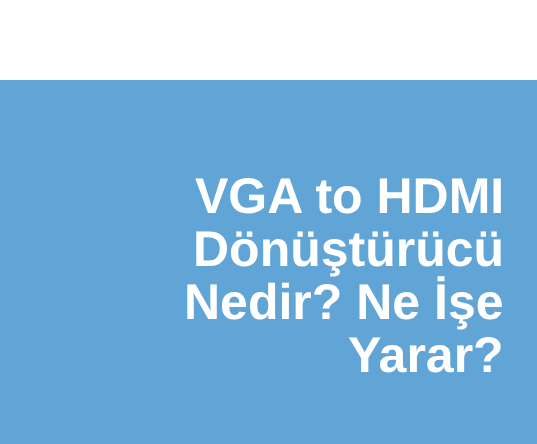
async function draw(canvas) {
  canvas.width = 537
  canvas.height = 444
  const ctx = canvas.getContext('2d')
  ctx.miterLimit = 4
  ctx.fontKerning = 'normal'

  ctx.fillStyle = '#61a5d6'
  ctx.fillRect(0, 0, 537, 444)
  ctx.fillStyle = '#fff'
  ctx.fillRect(0, 0, 537, 80)
  ctx.font = 'bold 50px Liberation Sans'
  ctx.fillText('VGA to HDMI', 195, 213)
  ctx.fillText('Dönüştürücü', 193, 266)
  ctx.fillText('Nedir? Ne İşe', 184, 319)
  ctx.fillText('Yarar?', 348, 372)
}

draw(document.querySelector('canvas'))
